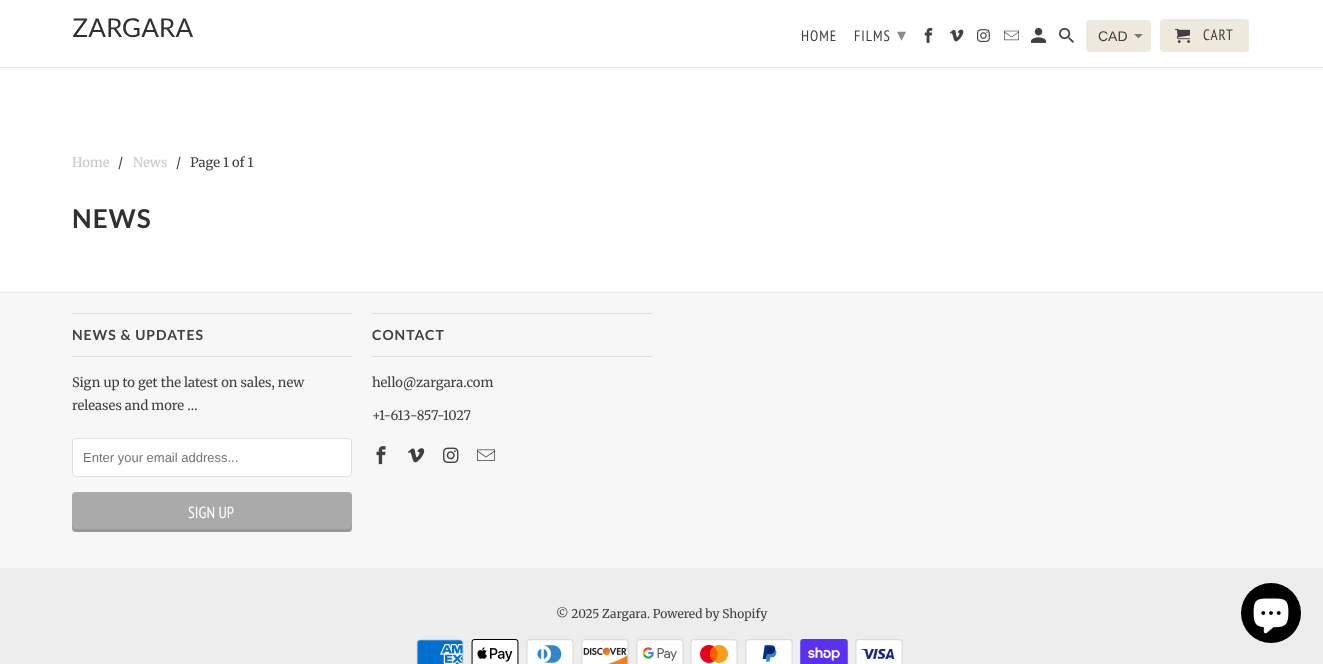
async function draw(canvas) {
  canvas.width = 1323
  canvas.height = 664
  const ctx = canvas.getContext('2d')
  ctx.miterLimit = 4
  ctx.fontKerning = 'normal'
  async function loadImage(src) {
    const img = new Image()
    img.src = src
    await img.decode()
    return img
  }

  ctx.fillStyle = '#fff'
  ctx.fillRect(0, 0, 1323, 664)
  ctx.fillStyle = '#e1e1e1'
  ctx.fillRect(0, 67, 1323, 1)
  ctx.font = '26px Lato'
  ctx.fillStyle = '#303030'
  ctx.fillText('ZARGARA', 72, 37)
  ctx.letterSpacing = '1px'
  ctx.font = '15px PT Sans Narrow'
  ctx.fillStyle = '#404040'
  ctx.fillText('HOME', 801, 41)
  ctx.fillText('FILMS', 854, 41)
  ctx.font = '18px DejaVu Sans'
  ctx.fillStyle = '#8c8c8c'
  ctx.fillText('▾', 897, 41)
  ctx.drawImage(await loadImage('image0.png'), 924, 27, 9, 16)
  ctx.drawImage(await loadImage('image1.png'), 949, 29, 15, 13)
  ctx.drawImage(await loadImage('image2.png'), 977, 29, 13, 13)
  ctx.drawImage(await loadImage('image3.png'), 1004, 30, 15, 11)
  ctx.drawImage(await loadImage('image4.png'), 1031, 27, 15, 16)
  ctx.drawImage(await loadImage('image5.png'), 1059, 27, 15, 16)
  ctx.fillStyle = '#ede9dd'
  ctx.beginPath()
  ctx.roundRect(1086, 20, 65, 32, 4)
  ctx.fill()
  ctx.drawImage(await loadImage('image6.png'), 1134, 34, 9, 5)
  ctx.letterSpacing = '0px'
  ctx.font = '14px Liberation Sans'
  ctx.fillStyle = '#404040'
  ctx.fillText('CAD', 1098, 41)
  ctx.fillStyle = '#ede9dd'
  ctx.beginPath()
  ctx.roundRect(1160, 19, 89, 33, 4)
  ctx.fill()
  ctx.drawImage(await loadImage('image7.png'), 1175, 28, 15, 15)
  ctx.letterSpacing = '1px'
  ctx.font = '15px PT Sans Narrow'
  ctx.fillStyle = '#404040'
  ctx.fillText('CART', 1203, 40)
  ctx.letterSpacing = '0px'
  ctx.font = '13px Merriweather'
  ctx.fillStyle = '#cbc8c9'
  ctx.fillText('Home', 72, 167)
  ctx.fillStyle = '#404040'
  ctx.fillText('/', 118, 167)
  ctx.fillStyle = '#cbc8c9'
  ctx.fillText('News', 133, 167)
  ctx.fillStyle = '#404040'
  ctx.fillText('/   Page 1 of 1', 176, 167)
  ctx.letterSpacing = '1px'
  ctx.font = 'bold 26px Lato'
  ctx.fillStyle = '#303030'
  ctx.fillText('NEWS', 72, 228)
  ctx.fillStyle = '#f7f7f7'
  ctx.fillRect(0, 293, 1323, 275)
  ctx.fillStyle = '#eaeaea'
  ctx.fillRect(0, 292, 1323, 1)
  ctx.fillStyle = '#dedede'
  ctx.fillRect(72, 313, 280, 1)
  ctx.fillRect(72, 356, 280, 1)
  ctx.font = 'bold 14px Lato'
  ctx.fillStyle = '#404040'
  ctx.fillText('NEWS & UPDATES', 72, 340)
  ctx.letterSpacing = '0px'
  ctx.font = '13px Merriweather'
  ctx.fillText('Sign up to get the latest on sales, new', 72, 387)
  ctx.fillText('releases and more …', 72, 410)
  ctx.fillStyle = '#fff'
  ctx.beginPath()
  ctx.roundRect(72.5, 438.5, 279, 38, 3.5)
  ctx.fill()
  ctx.strokeStyle = '#dce0e0'
  ctx.stroke()
  ctx.font = '13px Liberation Sans'
  ctx.fillStyle = '#757575'
  ctx.fillText('Enter your email address...', 83, 462)
  ctx.fillStyle = '#aaa'
  ctx.beginPath()
  ctx.roundRect(72, 492, 280, 40, 4)
  ctx.fill()
  ctx.fillStyle = '#0000001a'
  ctx.beginPath()
  ctx.moveTo(72, 525)
  ctx.bezierCurveTo(72, 528, 72, 531, 75, 532)
  ctx.lineTo(349, 532)
  ctx.bezierCurveTo(352, 531, 352, 528, 352, 525)
  ctx.bezierCurveTo(352, 527, 350, 529, 348, 529)
  ctx.lineTo(76, 529)
  ctx.bezierCurveTo(74, 529, 72, 527, 72, 525)
  ctx.closePath()
  ctx.fill()
  ctx.font = '16px PT Sans Narrow'
  ctx.fillStyle = '#fff'
  ctx.fillText('SIGN UP', 188, 518)
  ctx.fillStyle = '#dedede'
  ctx.fillRect(372, 313, 280, 1)
  ctx.fillRect(372, 356, 280, 1)
  ctx.letterSpacing = '1px'
  ctx.font = 'bold 14px Lato'
  ctx.fillStyle = '#404040'
  ctx.fillText('CONTACT', 372, 340)
  ctx.letterSpacing = '0px'
  ctx.font = '13px Merriweather'
  ctx.fillText('hello@zargara.com', 372, 387)
  ctx.fillText('+1-613-857-1027', 372, 420)
  ctx.drawImage(await loadImage('image8.png'), 376, 446, 10, 19)
  ctx.drawImage(await loadImage('image9.png'), 408, 448, 17, 15)
  ctx.drawImage(await loadImage('image10.png'), 443, 447, 16, 16)
  ctx.drawImage(await loadImage('image11.png'), 477, 449, 18, 12)
  ctx.fillStyle = '#ededed'
  ctx.fillRect(0, 568, 1323, 96)
  ctx.font = '12px Merriweather'
  ctx.fillStyle = '#404040'
  ctx.fillText('© 2025 Zargara. Powered by Shopify', 556, 618)
  ctx.drawImage(await loadImage('image12.png'), 416, 639, 48, 25)
  ctx.drawImage(await loadImage('image13.png'), 471, 639, 48, 25)
  ctx.drawImage(await loadImage('image14.png'), 526, 639, 48, 25)
  ctx.drawImage(await loadImage('image15.png'), 581, 639, 48, 25)
  ctx.drawImage(await loadImage('image16.png'), 636, 639, 48, 25)
  ctx.drawImage(await loadImage('image17.png'), 690, 639, 48, 25)
  ctx.drawImage(await loadImage('image18.png'), 745, 639, 48, 25)
  ctx.drawImage(await loadImage('image19.png'), 800, 639, 48, 25)
  ctx.drawImage(await loadImage('image20.png'), 855, 639, 48, 25)
  ctx.fillStyle = '#000'
  ctx.beginPath()
  ctx.arc(1271, 613, 30, 0, 2 * Math.PI)
  ctx.fill()
  ctx.drawImage(await loadImage('image21.png'), 1253, 598, 36, 36)
}

draw(document.querySelector('canvas'))
